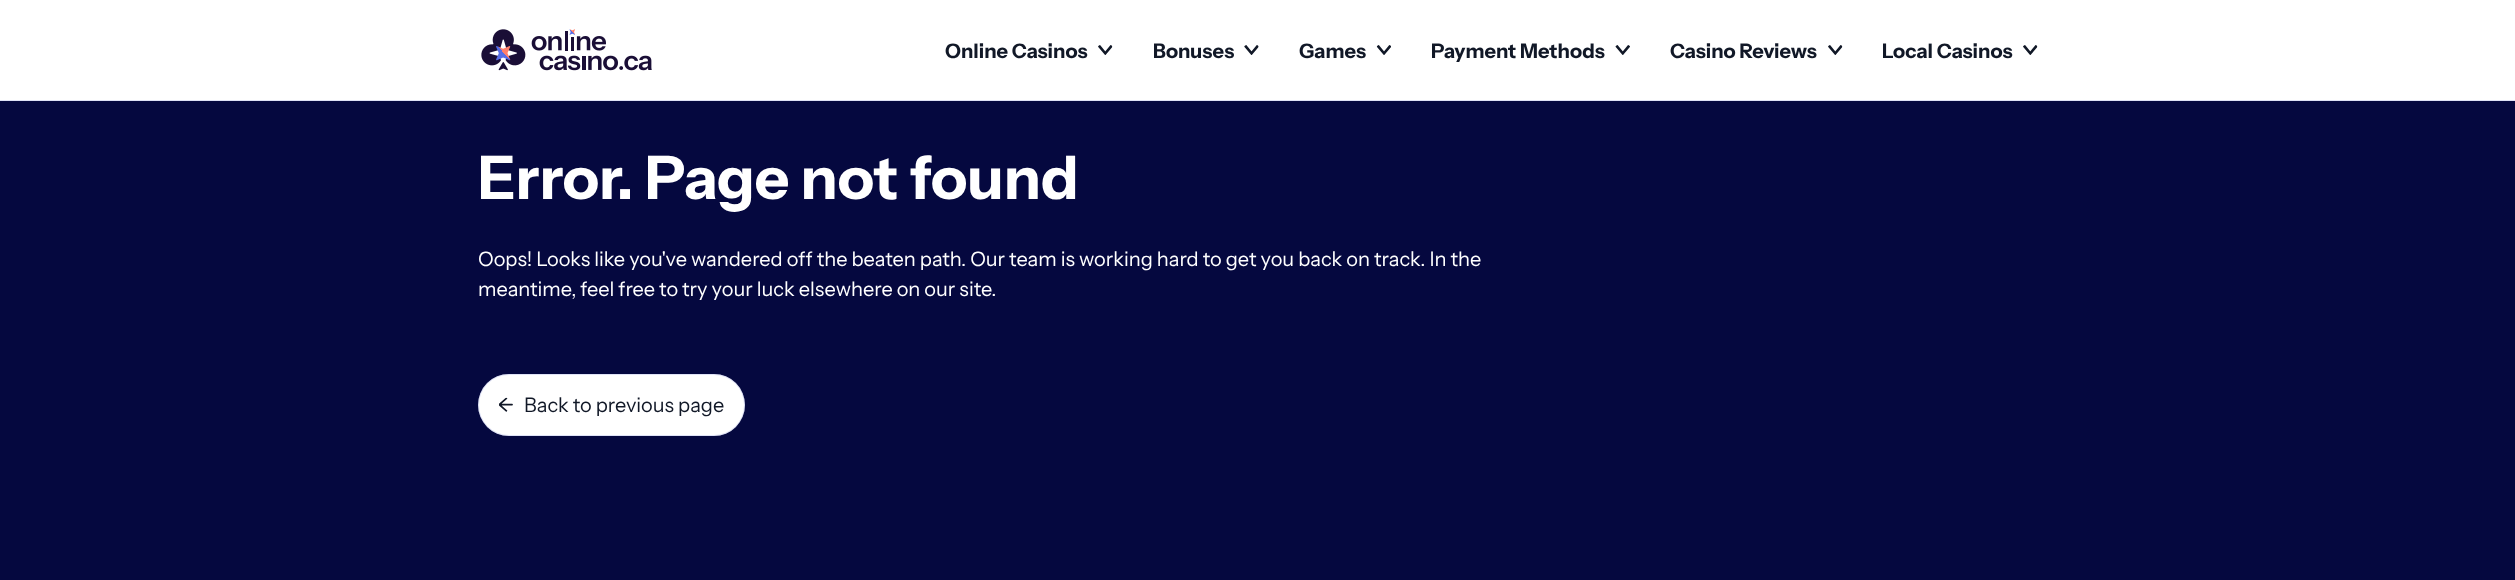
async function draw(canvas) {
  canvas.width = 2515
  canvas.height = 580
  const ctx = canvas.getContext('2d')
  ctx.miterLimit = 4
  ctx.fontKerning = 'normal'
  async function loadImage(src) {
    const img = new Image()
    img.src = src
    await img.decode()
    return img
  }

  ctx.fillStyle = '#fff'
  ctx.fillRect(0, 0, 2515, 580)
  ctx.fillStyle = '#dfe2f6'
  ctx.fillRect(0, 100, 2515, 1)
  ctx.drawImage(await loadImage('image0.png'), 481, 29, 171, 42)
  ctx.font = 'bold 20px Instrument Sans'
  ctx.fillStyle = '#111827'
  ctx.fillText('Online Casinos', 945, 58)
  ctx.drawImage(await loadImage('image1.png'), 1098, 45, 15, 10)
  ctx.fillText('Bonuses', 1153, 58)
  ctx.drawImage(await loadImage('image2.png'), 1244, 45, 15, 10)
  ctx.fillText('Games', 1299, 58)
  ctx.drawImage(await loadImage('image3.png'), 1376, 45, 15, 10)
  ctx.fillText('Payment Methods', 1431, 58)
  ctx.drawImage(await loadImage('image4.png'), 1615, 45, 15, 10)
  ctx.fillText('Casino Reviews', 1670, 58)
  ctx.drawImage(await loadImage('image1.png'), 1828, 45, 15, 10)
  ctx.fillText('Local Casinos', 1882, 58)
  ctx.drawImage(await loadImage('image5.png'), 2023, 45, 15, 10)
  ctx.fillStyle = '#05083f'
  ctx.fillRect(0, 101, 2515, 479)
  ctx.font = 'bold 60px Instrument Sans'
  ctx.fillStyle = '#fff'
  ctx.fillText('Error. Page not found', 478, 199)
  ctx.font = '20px Instrument Sans'
  ctx.fillText('Oops! Looks like you\'ve wandered off the beaten path. Our team is working hard to get you back on track. In the', 478, 266)
  ctx.fillText('meantime, feel free to try your luck elsewhere on our site.', 478, 296)
  ctx.beginPath()
  ctx.roundRect(478, 374, 267, 62, 31)
  ctx.fill()
  ctx.beginPath()
  ctx.roundRect(478.5, 374.5, 266, 61, 30.5)
  ctx.strokeStyle = '#7b86d93d'
  ctx.stroke()
  ctx.drawImage(await loadImage('image6.png'), 499, 397, 14, 15)
  ctx.fillStyle = '#111827'
  ctx.fillText('Back to previous page', 524, 412)
}

draw(document.querySelector('canvas'))
